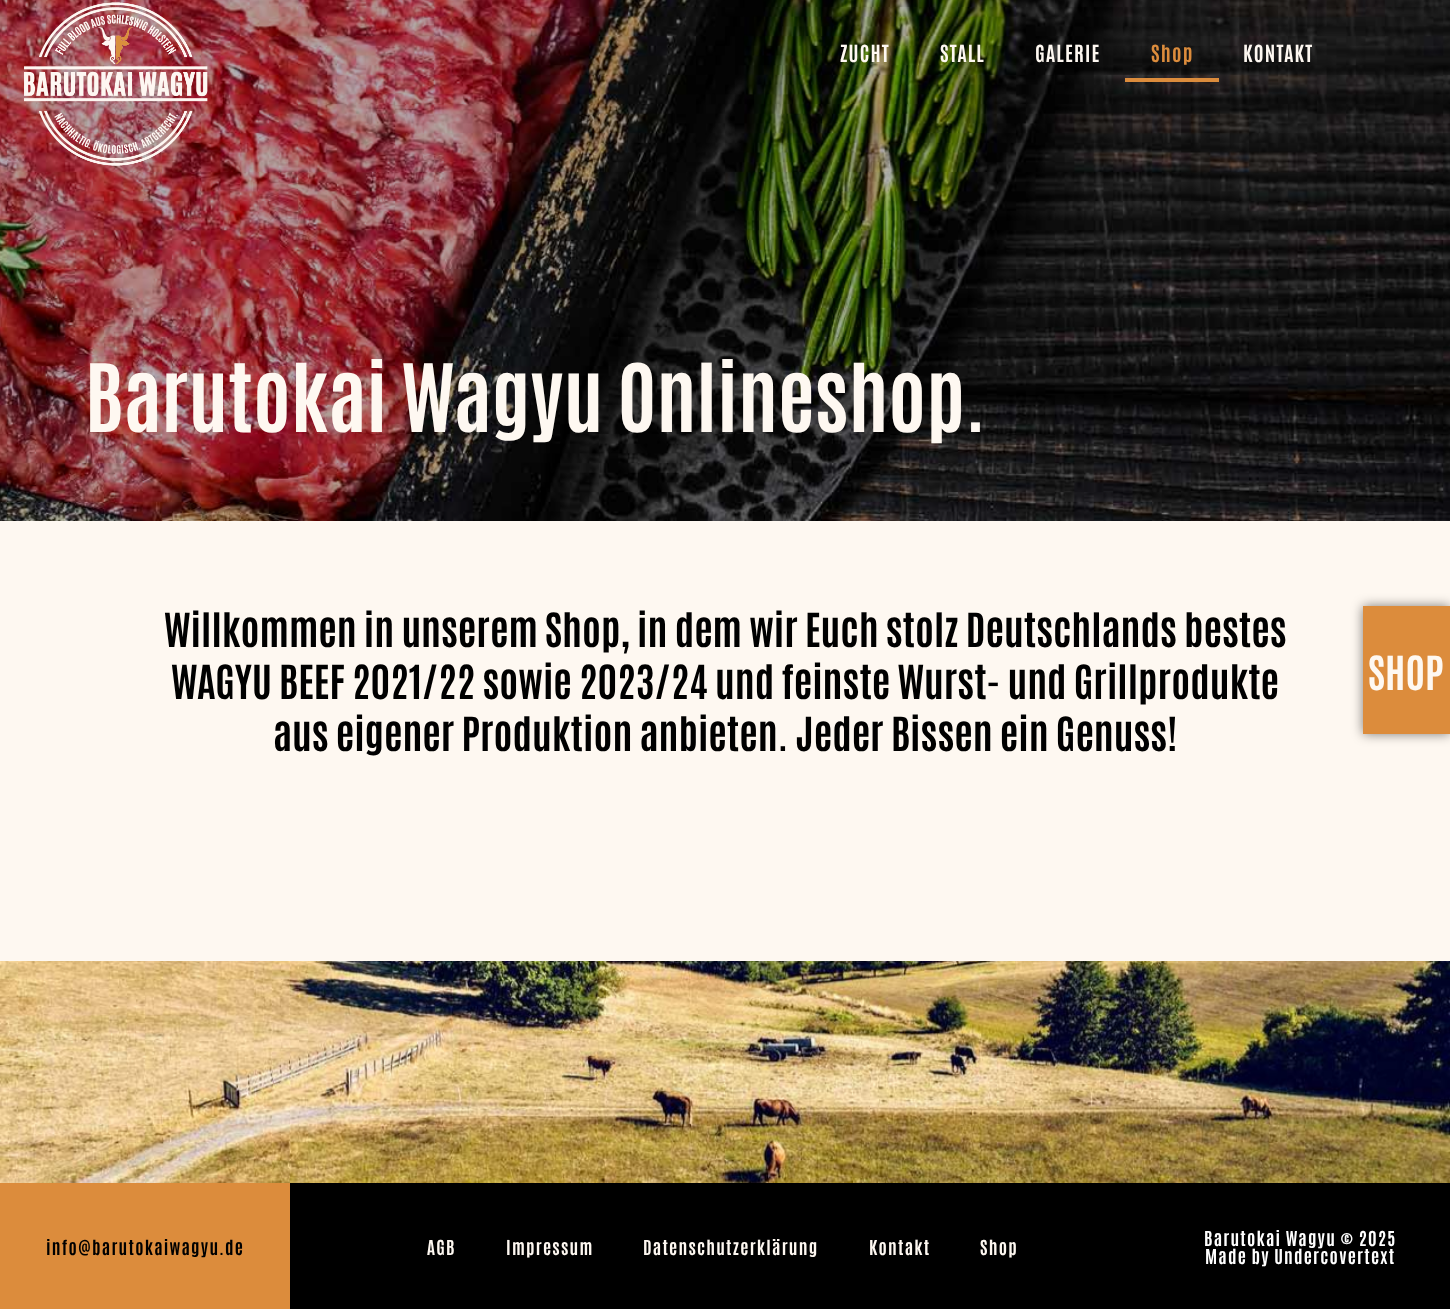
async function draw(canvas) {
  canvas.width = 1450
  canvas.height = 1309
  const ctx = canvas.getContext('2d')
  ctx.miterLimit = 4
  ctx.fontKerning = 'normal'
  async function loadImage(src) {
    const img = new Image()
    img.src = src
    await img.decode()
    return img
  }

  ctx.fillStyle = '#fff'
  ctx.fillRect(0, 0, 1450, 1309)
  ctx.drawImage(await loadImage('image1.png'), 0, 0, 1450, 521)
  ctx.drawImage(await loadImage('image0.png'), 24, 2, 184, 164)
  ctx.letterSpacing = '1.25px'
  ctx.font = 'bold 20px Antonio'
  ctx.fillStyle = '#fef8f1'
  ctx.fillText('ZUCHT', 840, 62)
  ctx.fillText('STALL', 940, 62)
  ctx.fillText('GALERIE', 1035, 62)
  ctx.fillStyle = '#dc8c3c'
  ctx.fillText('Shop', 1151, 62)
  ctx.fillRect(1125, 78, 94, 4)
  ctx.fillStyle = '#fef8f1'
  ctx.fillText('KONTAKT', 1243, 62)
  ctx.fillRect(0, 521, 1450, 440)
  ctx.fillStyle = '#00000080'
  ctx.filter = 'blur(6px)'
  ctx.beginPath()
  ctx.rect(1363, 606, 87, 128)
  ctx.fill()
  ctx.filter = 'none'
  ctx.fillStyle = '#dc8c3c'
  ctx.fillRect(1363, 606, 87, 128)
  ctx.letterSpacing = '0px'
  ctx.font = 'bold 40px Antonio'
  ctx.fillStyle = '#fef8f1'
  ctx.fillText('SHOP', 1368, 690)
  ctx.font = 'bold 80px Antonio'
  ctx.fillText('Barutokai Wagyu Onlineshop.', 85, 432)
  ctx.font = 'bold 40px Antonio'
  ctx.fillStyle = '#000'
  ctx.fillText('Willkommen in unserem Shop, in dem wir Euch stolz Deutschlands bestes', 164, 647)
  ctx.fillText('WAGYU BEEF 2021/22 sowie 2023/24 und feinste Wurst- und Grillprodukte', 171, 699)
  ctx.fillText('aus eigener Produktion anbieten. Jeder Bissen ein Genuss!', 273, 751)
  ctx.drawImage(await loadImage('image2.png'), 0, 961, 1450, 222)
  ctx.fillRect(290, 1183, 1160, 126)
  ctx.fillStyle = '#dc8c3c'
  ctx.fillRect(0, 1183, 290, 126)
  ctx.letterSpacing = '1.25px'
  ctx.font = 'bold 17.5px Antonio'
  ctx.fillStyle = '#000'
  ctx.fillText('info@barutokaiwagyu.de', 46, 1255)
  ctx.fillStyle = '#fef8f1'
  ctx.fillText('AGB', 427, 1255)
  ctx.fillText('Impressum', 506, 1255)
  ctx.fillText('Datenschutzerklärung', 643, 1255)
  ctx.fillText('Kontakt', 869, 1255)
  ctx.fillText('Shop', 980, 1255)
  ctx.fillStyle = '#fff'
  ctx.fillText('Barutokai Wagyu © 2025', 1204, 1246)
  ctx.fillText('Made by Undercovertext', 1205, 1264)
}

draw(document.querySelector('canvas'))
